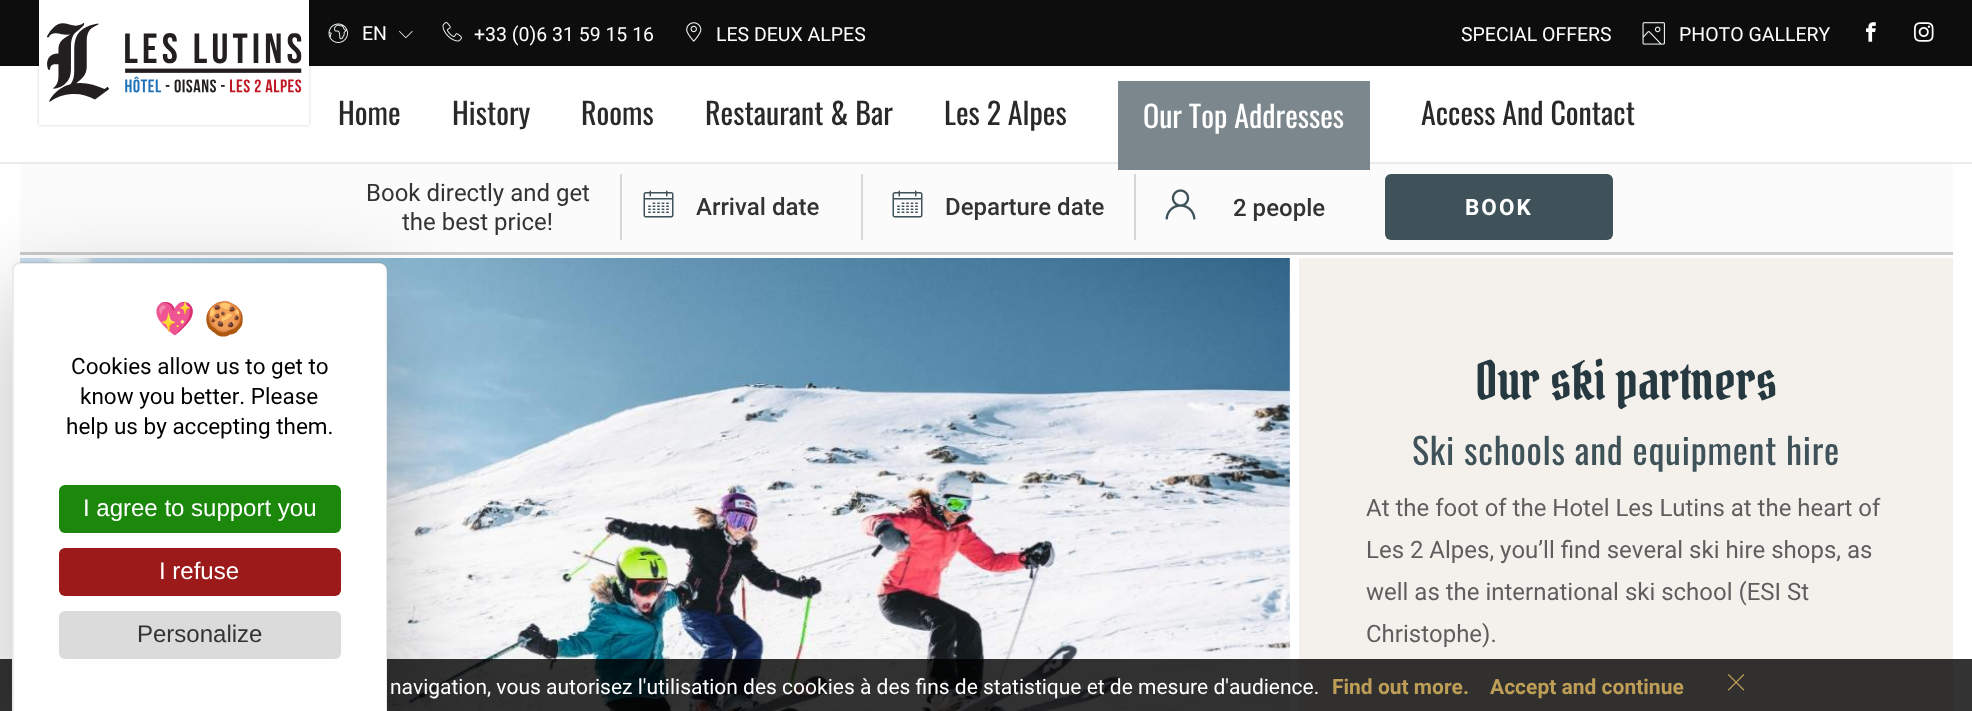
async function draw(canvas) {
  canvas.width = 1972
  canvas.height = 711
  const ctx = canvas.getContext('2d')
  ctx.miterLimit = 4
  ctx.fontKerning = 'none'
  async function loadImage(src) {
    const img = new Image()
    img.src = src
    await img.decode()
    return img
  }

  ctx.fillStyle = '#fff'
  ctx.fillRect(0, 0, 1972, 711)
  ctx.fillStyle = '#ececec'
  ctx.fillRect(0, 162, 1972, 2)
  ctx.fillStyle = '#0d0d0d'
  ctx.fillRect(0, 0, 1972, 66)
  ctx.fillStyle = '#00000033'
  ctx.filter = 'blur(1.5px)'
  ctx.beginPath()
  ctx.rect(39, 0, 270, 125)
  ctx.fill()
  ctx.filter = 'none'
  ctx.fillStyle = '#fff'
  ctx.fillRect(39, 0, 270, 125)
  ctx.drawImage(await loadImage('image0.png'), 47, 23, 255, 79)
  ctx.drawImage(await loadImage('image1.png'), 328, 23, 20, 20)
  ctx.font = '19.5px Roboto'
  ctx.fillText('EN', 362, 40)
  ctx.drawImage(await loadImage('image2.png'), 399, 31, 14, 8)
  ctx.drawImage(await loadImage('image3.png'), 442, 22, 20, 20)
  ctx.fillText('+33 (0)6 31 59 15 16', 474, 41)
  ctx.drawImage(await loadImage('image4.png'), 686, 22, 16, 20)
  ctx.fillText('LES DEUX ALPES', 716, 41)
  ctx.fillText('SPECIAL OFFERS', 1461, 41)
  ctx.drawImage(await loadImage('image5.png'), 1642, 22, 23, 23)
  ctx.fillText('PHOTO GALLERY', 1679, 41)
  ctx.drawImage(await loadImage('image6.png'), 1866, 22, 10, 20)
  ctx.drawImage(await loadImage('image7.png'), 1914, 22, 20, 20)
  ctx.font = '30px Oswald'
  ctx.fillStyle = '#292929'
  ctx.fillText('Home', 338, 125)
  ctx.fillText('History', 452, 125)
  ctx.fillText('Rooms', 581, 125)
  ctx.fillText('Restaurant & Bar', 705, 125)
  ctx.fillText('Les 2 Alpes', 944, 125)
  ctx.fillStyle = '#fbfbfb'
  ctx.fillRect(20, 164, 1933, 88)
  ctx.fillStyle = '#7b878c'
  ctx.fillRect(1118, 81, 252, 89)
  ctx.fillStyle = '#fff'
  ctx.fillText('Our Top Addresses', 1143, 128)
  ctx.fillStyle = '#292929'
  ctx.fillText('Access And Contact', 1421, 125)
  ctx.fillStyle = '#ccc'
  ctx.fillRect(20, 252, 1933, 3)
  ctx.drawImage(await loadImage('image10.png'), 20, 258, 1270, 453)
  ctx.fillStyle = '#f4f1ec'
  ctx.fillRect(1299, 258, 654, 453)
  ctx.fillStyle = '#000000cc'
  ctx.fillRect(0, 659, 1972, 52)
  ctx.fillStyle = '#00000040'
  ctx.filter = 'blur(45px)'
  ctx.beginPath()
  ctx.roundRect(12, 293, 375, 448, 8)
  ctx.fill()
  ctx.filter = 'none'
  ctx.fillStyle = '#fff'
  ctx.beginPath()
  ctx.roundRect(12, 263, 375, 448, [8, 8, 0, 0])
  ctx.fill()
  ctx.fillStyle = '#00000014'
  ctx.beginPath()
  ctx.moveTo(20, 262)
  ctx.lineTo(380, 262)
  ctx.bezierCurveTo(384, 262, 387, 266, 387, 270)
  ctx.lineTo(387, 711)
  ctx.lineTo(12, 711)
  ctx.lineTo(12, 270)
  ctx.bezierCurveTo(12, 266, 15, 262, 20, 262)
  ctx.closePath()
  ctx.moveTo(20, 264)
  ctx.lineTo(380, 264)
  ctx.bezierCurveTo(383, 264, 386, 267, 386, 270)
  ctx.lineTo(386, 711)
  ctx.lineTo(14, 711)
  ctx.lineTo(14, 270)
  ctx.bezierCurveTo(14, 267, 16, 264, 20, 264)
  ctx.closePath()
  ctx.fill('evenodd')
  ctx.font = '33px Noto Color Emoji'
  ctx.fillStyle = '#000'
  ctx.fillText('💖', 154, 330)
  ctx.fillText('🍪', 204, 330)
  ctx.font = '22.5px Roboto'
  ctx.fillText('Cookies allow us to get to', 71, 374)
  ctx.fillText('know you better. Please', 80, 404)
  ctx.fillText('help us by accepting them.', 66, 434)
  ctx.fillStyle = '#1b870b'
  ctx.beginPath()
  ctx.roundRect(59, 485, 282, 48, 6)
  ctx.fill()
  ctx.font = '24px Liberation Sans'
  ctx.fillStyle = '#fff'
  ctx.fillText('I agree to support you', 83, 516)
  ctx.fillStyle = '#9c1a1a'
  ctx.beginPath()
  ctx.roundRect(59, 548, 282, 48, 6)
  ctx.fill()
  ctx.fillStyle = '#fff'
  ctx.fillText('I refuse', 159, 579)
  ctx.fillStyle = '#dbdbdb'
  ctx.beginPath()
  ctx.roundRect(59, 611, 282, 48, 6)
  ctx.fill()
  ctx.fillStyle = '#333'
  ctx.fillText('Personalize', 137, 642)
  ctx.font = '24px Roboto'
  ctx.fillText('Book directly and get', 366, 201)
  ctx.fillText('the best price!', 402, 230)
  ctx.fillStyle = '#d7d7d7'
  ctx.fillRect(620, 174, 2, 66)
  ctx.fillRect(861, 174, 2, 66)
  ctx.drawImage(await loadImage('image8.png'), 643, 190, 31, 28)
  ctx.font = '500 24px Roboto'
  ctx.fillStyle = '#333'
  ctx.fillText('Arrival date', 696, 215)
  ctx.fillStyle = '#d7d7d7'
  ctx.fillRect(1134, 174, 2, 66)
  ctx.drawImage(await loadImage('image8.png'), 892, 190, 31, 28)
  ctx.fillStyle = '#333'
  ctx.fillText('Departure date', 945, 215)
  ctx.drawImage(await loadImage('image9.png'), 1165, 189, 31, 31)
  ctx.fillText('2 people', 1233, 216)
  ctx.fillStyle = '#3f5259'
  ctx.beginPath()
  ctx.roundRect(1385, 174, 228, 66, 6)
  ctx.fill()
  ctx.letterSpacing = '2px'
  ctx.font = 'bold 22.5px Roboto'
  ctx.fillStyle = '#fff'
  ctx.fillText('BOOK', 1465, 215)
  ctx.letterSpacing = '0px'
  ctx.font = '52.5px Pirata One'
  ctx.fillStyle = '#273940'
  ctx.fillText('Our ski partners', 1475, 400)
  ctx.letterSpacing = '0.75px'
  ctx.font = '36px Oswald'
  ctx.fillStyle = '#3f5259'
  ctx.fillText('Ski schools and equipment hire', 1412, 465)
  ctx.letterSpacing = '0px'
  ctx.font = '24px Roboto'
  ctx.fillStyle = '#5e5e5e'
  ctx.fillText('At the foot of the Hotel Les Lutins at the heart of', 1366, 516)
  ctx.fillText('Les 2 Alpes, you’ll find several ski hire shops, as', 1366, 558)
  ctx.fillText('well as the international ski school (ESI St', 1366, 600)
  ctx.fillText('Christophe).', 1366, 642)
  ctx.font = '21px Roboto'
  ctx.fillStyle = '#fff'
  ctx.fillText('navigation, vous autorisez l\'utilisation des cookies à des fins de statistique et de mesure d\'audience.', 390, 694)
  ctx.font = 'bold 21px Roboto'
  ctx.fillStyle = '#be9e56'
  ctx.fillText('Find out more.', 1332, 694)
  ctx.fillText('Accept and continue', 1490, 694)
  ctx.drawImage(await loadImage('image11.png'), 1728, 674, 17, 17)
}

draw(document.querySelector('canvas'))
